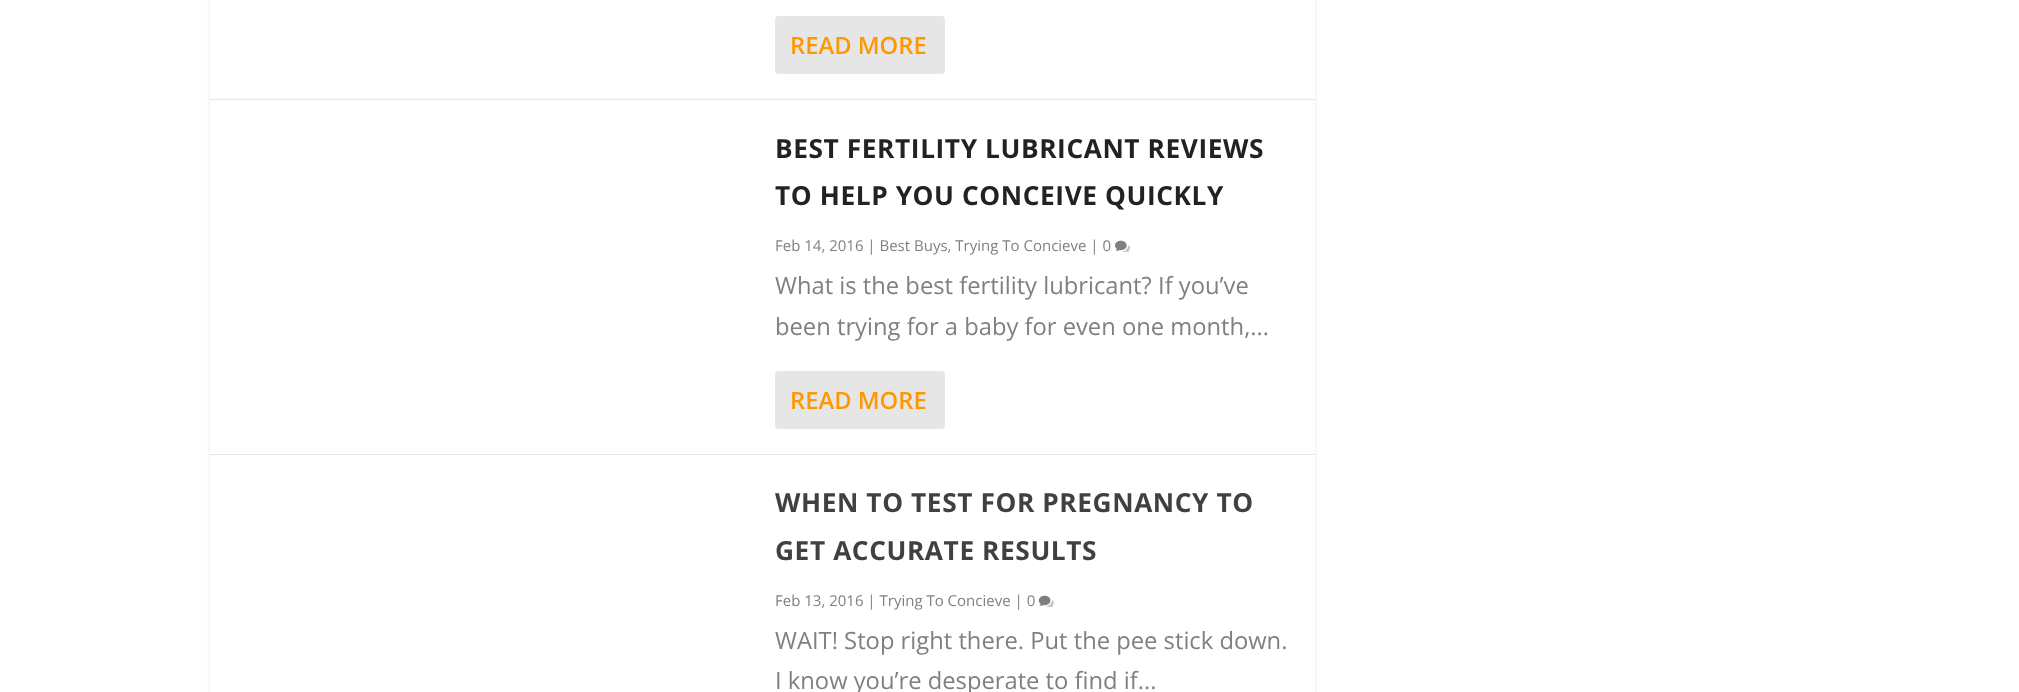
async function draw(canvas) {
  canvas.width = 2019
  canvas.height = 692
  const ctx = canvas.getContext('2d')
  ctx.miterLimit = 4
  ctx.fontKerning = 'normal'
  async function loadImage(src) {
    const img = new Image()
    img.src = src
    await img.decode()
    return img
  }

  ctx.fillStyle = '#fff'
  ctx.fillRect(0, 0, 2019, 692)
  ctx.save()
  ctx.beginPath()
  ctx.moveTo(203, 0)
  ctx.lineTo(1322, 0)
  ctx.lineTo(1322, 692)
  ctx.lineTo(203, 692)
  ctx.closePath()
  ctx.moveTo(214, -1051)
  ctx.lineTo(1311, -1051)
  ctx.bezierCurveTo(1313, -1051, 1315, -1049, 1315, -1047)
  ctx.lineTo(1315, 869)
  ctx.bezierCurveTo(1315, 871, 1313, 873, 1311, 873)
  ctx.lineTo(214, 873)
  ctx.bezierCurveTo(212, 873, 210, 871, 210, 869)
  ctx.lineTo(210, -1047)
  ctx.bezierCurveTo(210, -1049, 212, -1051, 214, -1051)
  ctx.closePath()
  ctx.clip('evenodd')
  ctx.fillStyle = '#0000001a'
  ctx.filter = 'blur(2px)'
  ctx.beginPath()
  ctx.roundRect(210, -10, 1105, 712, 4)
  ctx.fill()
  ctx.filter = 'none'
  ctx.restore()
  ctx.fillStyle = '#e6e6e6'
  ctx.fillRect(210, 99, 1105, 1)
  ctx.beginPath()
  ctx.roundRect(775, 16, 170, 58, 4)
  ctx.fill()
  ctx.font = '600 23.75px Open Sans'
  ctx.fillStyle = '#ff9700'
  ctx.fillText('READ MORE', 790, 54)
  ctx.fillStyle = '#e6e6e6'
  ctx.fillRect(210, 454, 1105, 1)
  ctx.letterSpacing = '0.6px'
  ctx.font = 'bold 26.25px Open Sans'
  ctx.fillStyle = '#222'
  ctx.fillText('BEST FERTILITY LUBRICANT REVIEWS', 775, 158)
  ctx.fillText('TO HELP YOU CONCEIVE QUICKLY', 775, 205)
  ctx.letterSpacing = '0px'
  ctx.font = '15px Open Sans'
  ctx.fillStyle = '#808080'
  ctx.fillText('Feb 14, 2016 | Best Buys, Trying To Concieve | 0', 775, 251)
  ctx.drawImage(await loadImage('image0.png'), 1115, 240, 15, 12)
  ctx.font = '23.75px Open Sans'
  ctx.fillText('What is the best fertility lubricant? If you’ve', 775, 294)
  ctx.fillText('been trying for a baby for even one month,...', 775, 335)
  ctx.fillStyle = '#e6e6e6'
  ctx.beginPath()
  ctx.roundRect(775, 371, 170, 58, 4)
  ctx.fill()
  ctx.font = '600 23.75px Open Sans'
  ctx.fillStyle = '#ff9700'
  ctx.fillText('READ MORE', 790, 409)
  ctx.letterSpacing = '0.6px'
  ctx.font = 'bold 26.25px Open Sans'
  ctx.fillStyle = '#404040'
  ctx.fillText('WHEN TO TEST FOR PREGNANCY TO', 775, 512)
  ctx.fillText('GET ACCURATE RESULTS', 775, 560)
  ctx.letterSpacing = '0px'
  ctx.font = '15px Open Sans'
  ctx.fillStyle = '#808080'
  ctx.fillText('Feb 13, 2016 | Trying To Concieve | 0', 775, 606)
  ctx.drawImage(await loadImage('image1.png'), 1038, 595, 16, 12)
  ctx.font = '23.75px Open Sans'
  ctx.fillText('WAIT! Stop right there. Put the pee stick down.', 775, 649)
  ctx.fillText('I know you’re desperate to find if...', 775, 689)
}

draw(document.querySelector('canvas'))
